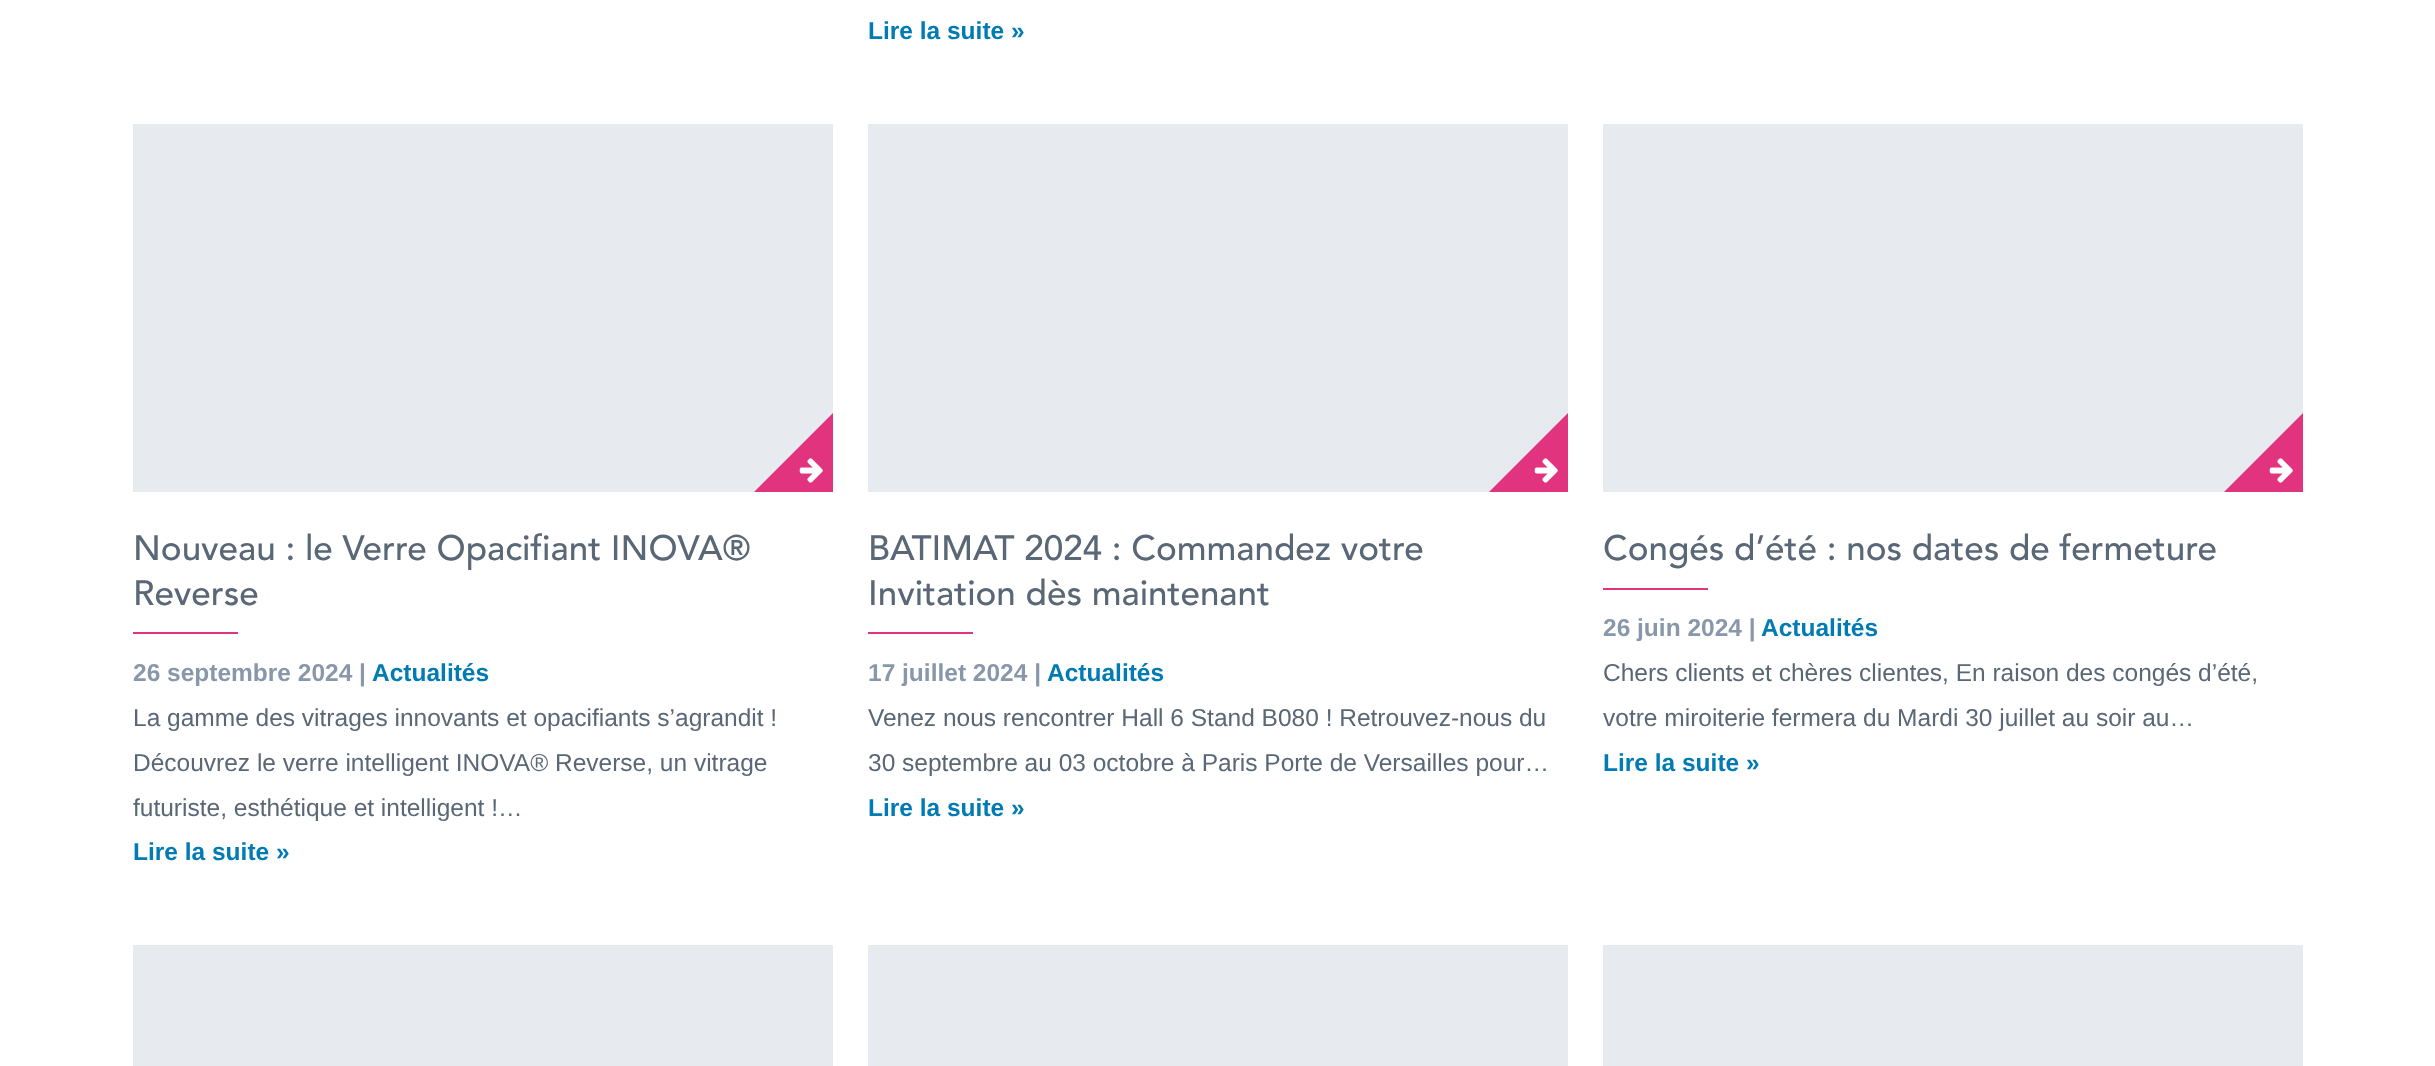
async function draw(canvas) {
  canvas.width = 2435
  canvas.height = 1066
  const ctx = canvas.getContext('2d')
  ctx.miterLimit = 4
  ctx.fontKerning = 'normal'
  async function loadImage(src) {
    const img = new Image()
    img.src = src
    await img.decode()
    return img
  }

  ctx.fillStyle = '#fff'
  ctx.fillRect(0, 0, 2435, 1066)
  ctx.font = 'bold 24.5px Liberation Sans'
  ctx.fillStyle = '#007bb3'
  ctx.fillText('Lire la suite »', 868, 39)
  ctx.fillStyle = '#e7ebf0'
  ctx.fillRect(133, 124, 700, 368)
  ctx.fillStyle = '#e2337e'
  ctx.beginPath()
  ctx.moveTo(833, 492)
  ctx.lineTo(754, 492)
  ctx.lineTo(833, 413)
  ctx.closePath()
  ctx.fill()
  ctx.drawImage(await loadImage('image0.png'), 799, 458, 24, 25)
  ctx.font = '500 35px Avenir'
  ctx.fillStyle = '#596776'
  ctx.fillText('Nouveau : le Verre Opacifiant INOVA®', 133, 560)
  ctx.fillText('Reverse', 133, 605)
  ctx.fillStyle = '#e2337e'
  ctx.fillRect(133, 632, 105, 2)
  ctx.font = 'bold 24.5px Liberation Sans'
  ctx.fillStyle = '#8898aa'
  ctx.fillText('26 septembre 2024 |', 133, 681)
  ctx.fillStyle = '#007bb3'
  ctx.fillText('Actualités', 372, 681)
  ctx.font = '24.5px Liberation Sans'
  ctx.fillStyle = '#596776'
  ctx.fillText('La gamme des vitrages innovants et opacifiants s’agrandit !', 133, 726)
  ctx.fillText('Découvrez le verre intelligent INOVA® Reverse, un vitrage', 133, 771)
  ctx.fillText('futuriste, esthétique et intelligent !…', 133, 816)
  ctx.font = 'bold 24.5px Liberation Sans'
  ctx.fillStyle = '#007bb3'
  ctx.fillText('Lire la suite »', 133, 860)
  ctx.fillStyle = '#e7ebf0'
  ctx.fillRect(868, 124, 700, 368)
  ctx.fillStyle = '#e2337e'
  ctx.beginPath()
  ctx.moveTo(1568, 492)
  ctx.lineTo(1489, 492)
  ctx.lineTo(1568, 413)
  ctx.closePath()
  ctx.fill()
  ctx.drawImage(await loadImage('image0.png'), 1534, 458, 24, 25)
  ctx.font = '500 35px Avenir'
  ctx.fillStyle = '#596776'
  ctx.fillText('BATIMAT 2024 : Commandez votre', 868, 560)
  ctx.fillText('Invitation dès maintenant', 868, 605)
  ctx.fillStyle = '#e2337e'
  ctx.fillRect(868, 632, 105, 2)
  ctx.font = 'bold 24.5px Liberation Sans'
  ctx.fillStyle = '#8898aa'
  ctx.fillText('17 juillet 2024 |', 868, 681)
  ctx.fillStyle = '#007bb3'
  ctx.fillText('Actualités', 1047, 681)
  ctx.font = '24.5px Liberation Sans'
  ctx.fillStyle = '#596776'
  ctx.fillText('Venez nous rencontrer Hall 6 Stand B080 ! Retrouvez-nous du', 868, 726)
  ctx.fillText('30 septembre au 03 octobre à Paris Porte de Versailles pour…', 868, 771)
  ctx.font = 'bold 24.5px Liberation Sans'
  ctx.fillStyle = '#007bb3'
  ctx.fillText('Lire la suite »', 868, 816)
  ctx.fillStyle = '#e7ebf0'
  ctx.fillRect(1603, 124, 700, 368)
  ctx.fillStyle = '#e2337e'
  ctx.beginPath()
  ctx.moveTo(2303, 492)
  ctx.lineTo(2224, 492)
  ctx.lineTo(2303, 413)
  ctx.closePath()
  ctx.fill()
  ctx.drawImage(await loadImage('image0.png'), 2269, 458, 24, 25)
  ctx.font = '500 35px Avenir'
  ctx.fillStyle = '#596776'
  ctx.fillText('Congés d’été : nos dates de fermeture', 1603, 560)
  ctx.fillStyle = '#e2337e'
  ctx.fillRect(1603, 588, 105, 2)
  ctx.font = 'bold 24.5px Liberation Sans'
  ctx.fillStyle = '#8898aa'
  ctx.fillText('26 juin 2024 |', 1603, 636)
  ctx.fillStyle = '#007bb3'
  ctx.fillText('Actualités', 1761, 636)
  ctx.font = '24.5px Liberation Sans'
  ctx.fillStyle = '#596776'
  ctx.fillText('Chers clients et chères clientes, En raison des congés d’été,', 1603, 681)
  ctx.fillText('votre miroiterie fermera du Mardi 30 juillet au soir au…', 1603, 726)
  ctx.font = 'bold 24.5px Liberation Sans'
  ctx.fillStyle = '#007bb3'
  ctx.fillText('Lire la suite »', 1603, 771)
  ctx.fillStyle = '#e7ebf0'
  ctx.fillRect(133, 945, 700, 121)
  ctx.fillRect(868, 945, 700, 121)
  ctx.fillRect(1603, 945, 700, 121)
}

draw(document.querySelector('canvas'))
